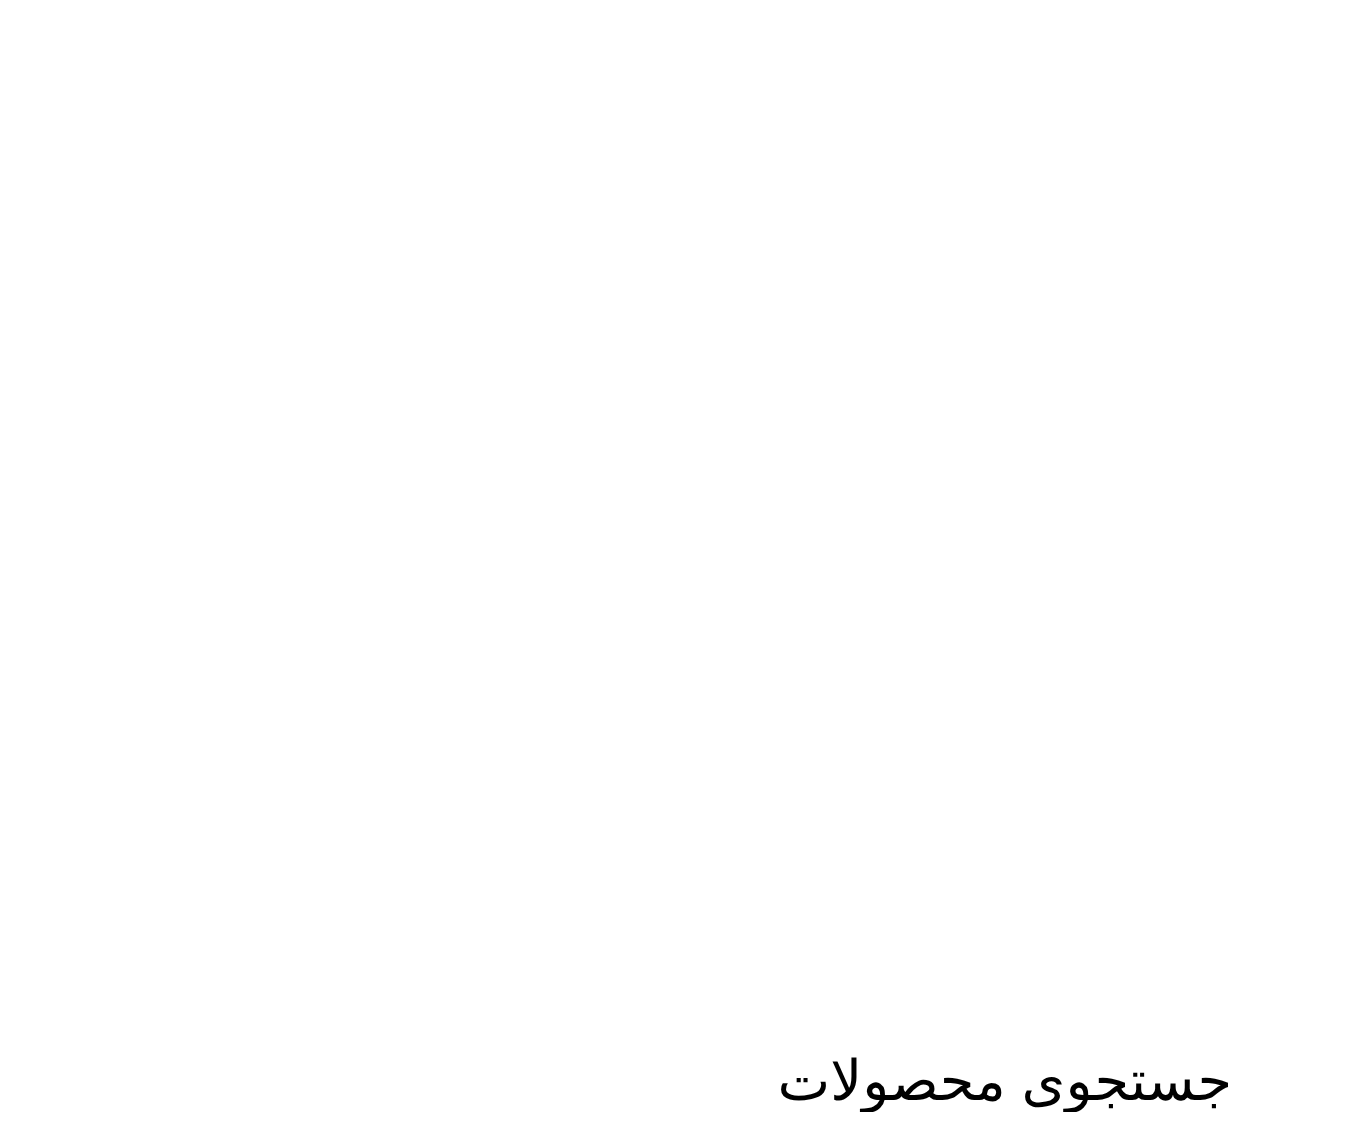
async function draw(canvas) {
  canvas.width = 1352
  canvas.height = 1139
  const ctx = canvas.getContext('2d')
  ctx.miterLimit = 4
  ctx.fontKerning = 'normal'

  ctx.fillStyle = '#fff'
  ctx.fillRect(0, 0, 1352, 1139)
  ctx.save()
  ctx.beginPath()
  ctx.rect(120, 1048, 1112, 64)
  ctx.clip()
  ctx.wordSpacing = '-2px'
  ctx.direction = 'rtl'
  ctx.font = '56px DejaVu Sans'
  ctx.fillStyle = '#000'
  ctx.fillText('جستجوی محصولات', 1232, 1100)
  ctx.restore()
}

draw(document.querySelector('canvas'))
